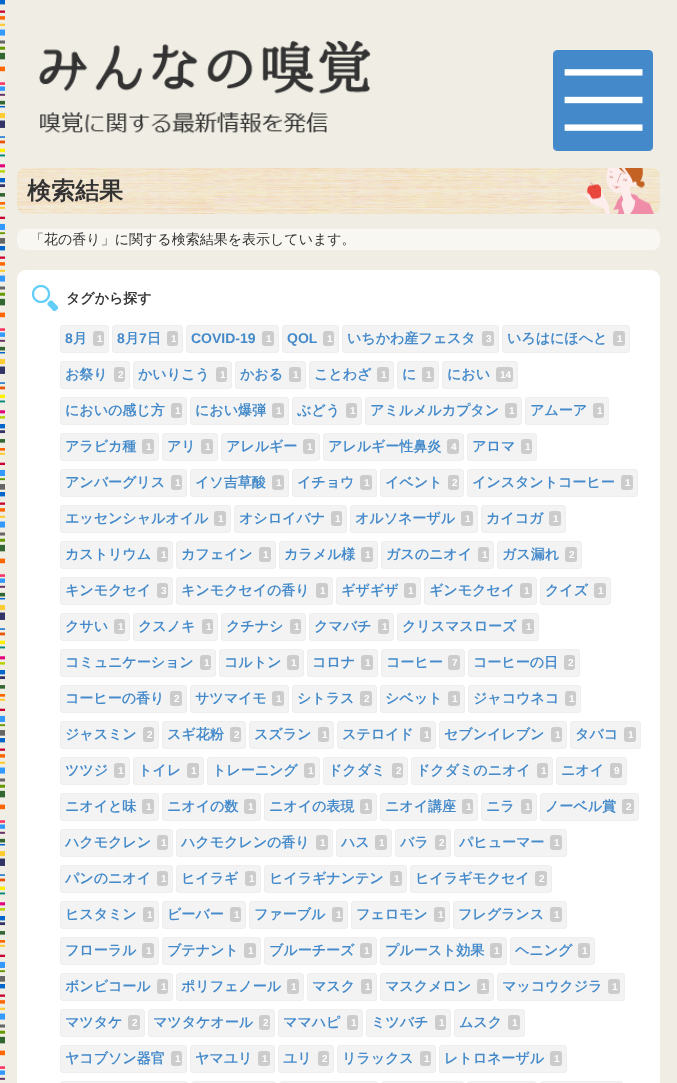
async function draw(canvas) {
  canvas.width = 677
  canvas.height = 1083
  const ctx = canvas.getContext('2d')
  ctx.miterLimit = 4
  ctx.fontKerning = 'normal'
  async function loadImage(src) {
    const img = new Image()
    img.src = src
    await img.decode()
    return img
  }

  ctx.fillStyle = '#f0eee4'
  ctx.fillRect(0, 0, 677, 1083)
  ctx.drawImage(await loadImage('image0.png'), 0, 0, 5, 1080)
  ctx.drawImage(await loadImage('image1.png'), 39, 40, 332, 94)
  ctx.drawImage(await loadImage('image2.png'), 553, 50, 100, 101)
  ctx.drawImage(await loadImage('image3.png'), 17, 168, 643, 46)
  ctx.font = 'bold 24px WenQuanYi Zen Hei'
  ctx.fillStyle = '#333'
  ctx.fillText('検索結果', 27, 199)
  ctx.fillStyle = '#f8f7f2'
  ctx.beginPath()
  ctx.roundRect(17, 229, 643, 21, 8)
  ctx.fill()
  ctx.font = '500 14px WenQuanYi Zen Hei'
  ctx.fillStyle = '#333'
  ctx.fillText('「花の香り」に関する検索結果を表示しています。', 30, 244)
  ctx.fillStyle = '#fff'
  ctx.beginPath()
  ctx.roundRect(17, 270, 643, 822, 9)
  ctx.fill()
  ctx.drawImage(await loadImage('image4.png'), 32, 285, 26, 26)
  ctx.font = 'bold 14px WenQuanYi Zen Hei'
  ctx.fillStyle = '#333'
  ctx.fillText('タグから探す', 66, 303)
  ctx.fillStyle = '#f3f3f3'
  ctx.beginPath()
  ctx.roundRect(60.5, 325.5, 48, 27, 2.5)
  ctx.fill()
  ctx.strokeStyle = '#eee'
  ctx.stroke()
  ctx.font = 'bold 14px Liberation Sans'
  ctx.fillStyle = '#448aca'
  ctx.fillText('8', 65, 343)
  ctx.font = 'bold 14px WenQuanYi Zen Hei'
  ctx.fillText('月', 73, 343)
  ctx.fillStyle = '#ccc'
  ctx.beginPath()
  ctx.roundRect(93, 331, 11, 15, 3)
  ctx.fill()
  ctx.font = 'bold 10px Liberation Sans'
  ctx.fillStyle = '#fff'
  ctx.fillText('1', 97, 342)
  ctx.fillStyle = '#f3f3f3'
  ctx.beginPath()
  ctx.roundRect(112.5, 325.5, 70, 27, 2.5)
  ctx.fill()
  ctx.stroke()
  ctx.font = 'bold 14px Liberation Sans'
  ctx.fillStyle = '#448aca'
  ctx.fillText('8', 117, 343)
  ctx.font = 'bold 14px WenQuanYi Zen Hei'
  ctx.fillText('月', 125, 343)
  ctx.font = 'bold 14px Liberation Sans'
  ctx.fillText('7', 139, 343)
  ctx.font = 'bold 14px WenQuanYi Zen Hei'
  ctx.fillText('日', 147, 343)
  ctx.fillStyle = '#ccc'
  ctx.beginPath()
  ctx.roundRect(167, 331, 11, 15, 3)
  ctx.fill()
  ctx.font = 'bold 10px Liberation Sans'
  ctx.fillStyle = '#fff'
  ctx.fillText('1', 171, 342)
  ctx.fillStyle = '#f3f3f3'
  ctx.beginPath()
  ctx.roundRect(186.5, 325.5, 92, 27, 2.5)
  ctx.fill()
  ctx.stroke()
  ctx.font = 'bold 14px Liberation Sans'
  ctx.fillStyle = '#448aca'
  ctx.fillText('COVID-19', 191, 343)
  ctx.fillStyle = '#ccc'
  ctx.beginPath()
  ctx.roundRect(262, 331, 12, 15, 3)
  ctx.fill()
  ctx.font = 'bold 10px Liberation Sans'
  ctx.fillStyle = '#fff'
  ctx.fillText('1', 266, 342)
  ctx.fillStyle = '#f3f3f3'
  ctx.beginPath()
  ctx.roundRect(282.5, 325.5, 56, 27, 2.5)
  ctx.fill()
  ctx.stroke()
  ctx.font = 'bold 14px Liberation Sans'
  ctx.fillStyle = '#448aca'
  ctx.fillText('QOL', 287, 343)
  ctx.fillStyle = '#ccc'
  ctx.beginPath()
  ctx.roundRect(323, 331, 11, 15, 3)
  ctx.fill()
  ctx.font = 'bold 10px Liberation Sans'
  ctx.fillStyle = '#fff'
  ctx.fillText('1', 327, 342)
  ctx.fillStyle = '#f3f3f3'
  ctx.beginPath()
  ctx.roundRect(342.5, 325.5, 156, 27, 2.5)
  ctx.fill()
  ctx.stroke()
  ctx.font = 'bold 14px WenQuanYi Zen Hei'
  ctx.fillStyle = '#448aca'
  ctx.fillText('いちかわ産フェスタ', 347, 343)
  ctx.fillStyle = '#ccc'
  ctx.beginPath()
  ctx.roundRect(482, 331, 12, 15, 3)
  ctx.fill()
  ctx.font = 'bold 10px Liberation Sans'
  ctx.fillStyle = '#fff'
  ctx.fillText('3', 486, 342)
  ctx.fillStyle = '#f3f3f3'
  ctx.beginPath()
  ctx.roundRect(502.5, 325.5, 127, 27, 2.5)
  ctx.fill()
  ctx.stroke()
  ctx.font = 'bold 14px WenQuanYi Zen Hei'
  ctx.fillStyle = '#448aca'
  ctx.fillText('いろはにほへと', 507, 343)
  ctx.fillStyle = '#ccc'
  ctx.beginPath()
  ctx.roundRect(613, 331, 12, 15, 3)
  ctx.fill()
  ctx.font = 'bold 10px Liberation Sans'
  ctx.fillStyle = '#fff'
  ctx.fillText('1', 617, 342)
  ctx.fillStyle = '#f3f3f3'
  ctx.beginPath()
  ctx.roundRect(60.5, 361.5, 69, 27, 2.5)
  ctx.fill()
  ctx.stroke()
  ctx.font = 'bold 14px WenQuanYi Zen Hei'
  ctx.fillStyle = '#448aca'
  ctx.fillText('お祭り', 65, 379)
  ctx.fillStyle = '#ccc'
  ctx.beginPath()
  ctx.roundRect(114, 367, 11, 15, 3)
  ctx.fill()
  ctx.font = 'bold 10px Liberation Sans'
  ctx.fillStyle = '#fff'
  ctx.fillText('2', 118, 378)
  ctx.fillStyle = '#f3f3f3'
  ctx.beginPath()
  ctx.roundRect(133.5, 361.5, 98, 27, 2.5)
  ctx.fill()
  ctx.stroke()
  ctx.font = 'bold 14px WenQuanYi Zen Hei'
  ctx.fillStyle = '#448aca'
  ctx.fillText('かいりこう', 138, 379)
  ctx.fillStyle = '#ccc'
  ctx.beginPath()
  ctx.roundRect(216, 367, 11, 15, 3)
  ctx.fill()
  ctx.font = 'bold 10px Liberation Sans'
  ctx.fillStyle = '#fff'
  ctx.fillText('1', 220, 378)
  ctx.fillStyle = '#f3f3f3'
  ctx.beginPath()
  ctx.roundRect(235.5, 361.5, 70, 27, 2.5)
  ctx.fill()
  ctx.stroke()
  ctx.font = 'bold 14px WenQuanYi Zen Hei'
  ctx.fillStyle = '#448aca'
  ctx.fillText('かおる', 240, 379)
  ctx.fillStyle = '#ccc'
  ctx.beginPath()
  ctx.roundRect(289, 367, 12, 15, 3)
  ctx.fill()
  ctx.font = 'bold 10px Liberation Sans'
  ctx.fillStyle = '#fff'
  ctx.fillText('1', 293, 378)
  ctx.fillStyle = '#f3f3f3'
  ctx.beginPath()
  ctx.roundRect(309.5, 361.5, 84, 27, 2.5)
  ctx.fill()
  ctx.stroke()
  ctx.font = 'bold 14px WenQuanYi Zen Hei'
  ctx.fillStyle = '#448aca'
  ctx.fillText('ことわざ', 314, 379)
  ctx.fillStyle = '#ccc'
  ctx.beginPath()
  ctx.roundRect(377, 367, 12, 15, 3)
  ctx.fill()
  ctx.font = 'bold 10px Liberation Sans'
  ctx.fillStyle = '#fff'
  ctx.fillText('1', 381, 378)
  ctx.fillStyle = '#f3f3f3'
  ctx.beginPath()
  ctx.roundRect(397.5, 361.5, 41, 27, 2.5)
  ctx.fill()
  ctx.stroke()
  ctx.font = 'bold 14px WenQuanYi Zen Hei'
  ctx.fillStyle = '#448aca'
  ctx.fillText('に', 402, 379)
  ctx.fillStyle = '#ccc'
  ctx.beginPath()
  ctx.roundRect(422, 367, 12, 15, 3)
  ctx.fill()
  ctx.font = 'bold 10px Liberation Sans'
  ctx.fillStyle = '#fff'
  ctx.fillText('1', 426, 378)
  ctx.fillStyle = '#f3f3f3'
  ctx.beginPath()
  ctx.roundRect(442.5, 361.5, 75, 27, 2.5)
  ctx.fill()
  ctx.stroke()
  ctx.font = 'bold 14px WenQuanYi Zen Hei'
  ctx.fillStyle = '#448aca'
  ctx.fillText('におい', 447, 379)
  ctx.fillStyle = '#ccc'
  ctx.beginPath()
  ctx.roundRect(496, 367, 17, 15, 3)
  ctx.fill()
  ctx.font = 'bold 10px Liberation Sans'
  ctx.fillStyle = '#fff'
  ctx.fillText('14', 500, 378)
  ctx.fillStyle = '#f3f3f3'
  ctx.beginPath()
  ctx.roundRect(60.5, 397.5, 126, 27, 2.5)
  ctx.fill()
  ctx.stroke()
  ctx.font = 'bold 14px WenQuanYi Zen Hei'
  ctx.fillStyle = '#448aca'
  ctx.fillText('においの感じ方', 65, 415)
  ctx.fillStyle = '#ccc'
  ctx.beginPath()
  ctx.roundRect(171, 403, 11, 15, 3)
  ctx.fill()
  ctx.font = 'bold 10px Liberation Sans'
  ctx.fillStyle = '#fff'
  ctx.fillText('1', 175, 414)
  ctx.fillStyle = '#f3f3f3'
  ctx.beginPath()
  ctx.roundRect(190.5, 397.5, 98, 27, 2.5)
  ctx.fill()
  ctx.stroke()
  ctx.font = 'bold 14px WenQuanYi Zen Hei'
  ctx.fillStyle = '#448aca'
  ctx.fillText('におい爆弾', 195, 415)
  ctx.fillStyle = '#ccc'
  ctx.beginPath()
  ctx.roundRect(272, 403, 12, 15, 3)
  ctx.fill()
  ctx.font = 'bold 10px Liberation Sans'
  ctx.fillStyle = '#fff'
  ctx.fillText('1', 276, 414)
  ctx.fillStyle = '#f3f3f3'
  ctx.beginPath()
  ctx.roundRect(292.5, 397.5, 69, 27, 2.5)
  ctx.fill()
  ctx.stroke()
  ctx.font = 'bold 14px WenQuanYi Zen Hei'
  ctx.fillStyle = '#448aca'
  ctx.fillText('ぶどう', 297, 415)
  ctx.fillStyle = '#ccc'
  ctx.beginPath()
  ctx.roundRect(346, 403, 11, 15, 3)
  ctx.fill()
  ctx.font = 'bold 10px Liberation Sans'
  ctx.fillStyle = '#fff'
  ctx.fillText('1', 350, 414)
  ctx.fillStyle = '#f3f3f3'
  ctx.beginPath()
  ctx.roundRect(365.5, 397.5, 156, 27, 2.5)
  ctx.fill()
  ctx.stroke()
  ctx.font = 'bold 14px WenQuanYi Zen Hei'
  ctx.fillStyle = '#448aca'
  ctx.fillText('アミルメルカプタン', 370, 415)
  ctx.fillStyle = '#ccc'
  ctx.beginPath()
  ctx.roundRect(505, 403, 12, 15, 3)
  ctx.fill()
  ctx.font = 'bold 10px Liberation Sans'
  ctx.fillStyle = '#fff'
  ctx.fillText('1', 509, 414)
  ctx.fillStyle = '#f3f3f3'
  ctx.beginPath()
  ctx.roundRect(525.5, 397.5, 83, 27, 2.5)
  ctx.fill()
  ctx.stroke()
  ctx.font = 'bold 14px WenQuanYi Zen Hei'
  ctx.fillStyle = '#448aca'
  ctx.fillText('アムーア', 530, 415)
  ctx.fillStyle = '#ccc'
  ctx.beginPath()
  ctx.roundRect(593, 403, 11, 15, 3)
  ctx.fill()
  ctx.font = 'bold 10px Liberation Sans'
  ctx.fillStyle = '#fff'
  ctx.fillText('1', 597, 414)
  ctx.fillStyle = '#f3f3f3'
  ctx.beginPath()
  ctx.roundRect(60.5, 433.5, 98, 27, 2.5)
  ctx.fill()
  ctx.stroke()
  ctx.font = 'bold 14px WenQuanYi Zen Hei'
  ctx.fillStyle = '#448aca'
  ctx.fillText('アラビカ種', 65, 451)
  ctx.fillStyle = '#ccc'
  ctx.beginPath()
  ctx.roundRect(142, 439, 12, 15, 3)
  ctx.fill()
  ctx.font = 'bold 10px Liberation Sans'
  ctx.fillStyle = '#fff'
  ctx.fillText('1', 146, 450)
  ctx.fillStyle = '#f3f3f3'
  ctx.beginPath()
  ctx.roundRect(162.5, 433.5, 55, 27, 2.5)
  ctx.fill()
  ctx.stroke()
  ctx.font = 'bold 14px WenQuanYi Zen Hei'
  ctx.fillStyle = '#448aca'
  ctx.fillText('アリ', 167, 451)
  ctx.fillStyle = '#ccc'
  ctx.beginPath()
  ctx.roundRect(201, 439, 12, 15, 3)
  ctx.fill()
  ctx.font = 'bold 10px Liberation Sans'
  ctx.fillStyle = '#fff'
  ctx.fillText('1', 205, 450)
  ctx.fillStyle = '#f3f3f3'
  ctx.beginPath()
  ctx.roundRect(221.5, 433.5, 98, 27, 2.5)
  ctx.fill()
  ctx.stroke()
  ctx.font = 'bold 14px WenQuanYi Zen Hei'
  ctx.fillStyle = '#448aca'
  ctx.fillText('アレルギー', 226, 451)
  ctx.fillStyle = '#ccc'
  ctx.beginPath()
  ctx.roundRect(303, 439, 12, 15, 3)
  ctx.fill()
  ctx.font = 'bold 10px Liberation Sans'
  ctx.fillStyle = '#fff'
  ctx.fillText('1', 307, 450)
  ctx.fillStyle = '#f3f3f3'
  ctx.beginPath()
  ctx.roundRect(323.5, 433.5, 140, 27, 2.5)
  ctx.fill()
  ctx.stroke()
  ctx.font = 'bold 14px WenQuanYi Zen Hei'
  ctx.fillStyle = '#448aca'
  ctx.fillText('アレルギー性鼻炎', 328, 451)
  ctx.fillStyle = '#ccc'
  ctx.beginPath()
  ctx.roundRect(447, 439, 12, 15, 3)
  ctx.fill()
  ctx.font = 'bold 10px Liberation Sans'
  ctx.fillStyle = '#fff'
  ctx.fillText('4', 451, 450)
  ctx.fillStyle = '#f3f3f3'
  ctx.beginPath()
  ctx.roundRect(467.5, 433.5, 69, 27, 2.5)
  ctx.fill()
  ctx.stroke()
  ctx.font = 'bold 14px WenQuanYi Zen Hei'
  ctx.fillStyle = '#448aca'
  ctx.fillText('アロマ', 472, 451)
  ctx.fillStyle = '#ccc'
  ctx.beginPath()
  ctx.roundRect(521, 439, 11, 15, 3)
  ctx.fill()
  ctx.font = 'bold 10px Liberation Sans'
  ctx.fillStyle = '#fff'
  ctx.fillText('1', 525, 450)
  ctx.fillStyle = '#f3f3f3'
  ctx.beginPath()
  ctx.roundRect(60.5, 469.5, 126, 27, 2.5)
  ctx.fill()
  ctx.stroke()
  ctx.font = 'bold 14px WenQuanYi Zen Hei'
  ctx.fillStyle = '#448aca'
  ctx.fillText('アンバーグリス', 65, 487)
  ctx.fillStyle = '#ccc'
  ctx.beginPath()
  ctx.roundRect(171, 475, 11, 15, 3)
  ctx.fill()
  ctx.font = 'bold 10px Liberation Sans'
  ctx.fillStyle = '#fff'
  ctx.fillText('1', 175, 486)
  ctx.fillStyle = '#f3f3f3'
  ctx.beginPath()
  ctx.roundRect(190.5, 469.5, 98, 27, 2.5)
  ctx.fill()
  ctx.stroke()
  ctx.font = 'bold 14px WenQuanYi Zen Hei'
  ctx.fillStyle = '#448aca'
  ctx.fillText('イソ吉草酸', 195, 487)
  ctx.fillStyle = '#ccc'
  ctx.beginPath()
  ctx.roundRect(272, 475, 12, 15, 3)
  ctx.fill()
  ctx.font = 'bold 10px Liberation Sans'
  ctx.fillStyle = '#fff'
  ctx.fillText('1', 276, 486)
  ctx.fillStyle = '#f3f3f3'
  ctx.beginPath()
  ctx.roundRect(292.5, 469.5, 84, 27, 2.5)
  ctx.fill()
  ctx.stroke()
  ctx.font = 'bold 14px WenQuanYi Zen Hei'
  ctx.fillStyle = '#448aca'
  ctx.fillText('イチョウ', 297, 487)
  ctx.fillStyle = '#ccc'
  ctx.beginPath()
  ctx.roundRect(360, 475, 12, 15, 3)
  ctx.fill()
  ctx.font = 'bold 10px Liberation Sans'
  ctx.fillStyle = '#fff'
  ctx.fillText('1', 364, 486)
  ctx.fillStyle = '#f3f3f3'
  ctx.beginPath()
  ctx.roundRect(380.5, 469.5, 83, 27, 2.5)
  ctx.fill()
  ctx.stroke()
  ctx.font = 'bold 14px WenQuanYi Zen Hei'
  ctx.fillStyle = '#448aca'
  ctx.fillText('イベント', 385, 487)
  ctx.fillStyle = '#ccc'
  ctx.beginPath()
  ctx.roundRect(448, 475, 11, 15, 3)
  ctx.fill()
  ctx.font = 'bold 10px Liberation Sans'
  ctx.fillStyle = '#fff'
  ctx.fillText('2', 452, 486)
  ctx.fillStyle = '#f3f3f3'
  ctx.beginPath()
  ctx.roundRect(467.5, 469.5, 170, 27, 2.5)
  ctx.fill()
  ctx.stroke()
  ctx.font = 'bold 14px WenQuanYi Zen Hei'
  ctx.fillStyle = '#448aca'
  ctx.fillText('インスタントコーヒー', 472, 487)
  ctx.fillStyle = '#ccc'
  ctx.beginPath()
  ctx.roundRect(621, 475, 12, 15, 3)
  ctx.fill()
  ctx.font = 'bold 10px Liberation Sans'
  ctx.fillStyle = '#fff'
  ctx.fillText('1', 625, 486)
  ctx.fillStyle = '#f3f3f3'
  ctx.beginPath()
  ctx.roundRect(60.5, 505.5, 170, 27, 2.5)
  ctx.fill()
  ctx.stroke()
  ctx.font = 'bold 14px WenQuanYi Zen Hei'
  ctx.fillStyle = '#448aca'
  ctx.fillText('エッセンシャルオイル', 65, 523)
  ctx.fillStyle = '#ccc'
  ctx.beginPath()
  ctx.roundRect(214, 511, 12, 15, 3)
  ctx.fill()
  ctx.font = 'bold 10px Liberation Sans'
  ctx.fillStyle = '#fff'
  ctx.fillText('1', 218, 522)
  ctx.fillStyle = '#f3f3f3'
  ctx.beginPath()
  ctx.roundRect(234.5, 505.5, 112, 27, 2.5)
  ctx.fill()
  ctx.stroke()
  ctx.font = 'bold 14px WenQuanYi Zen Hei'
  ctx.fillStyle = '#448aca'
  ctx.fillText('オシロイバナ', 239, 523)
  ctx.fillStyle = '#ccc'
  ctx.beginPath()
  ctx.roundRect(331, 511, 11, 15, 3)
  ctx.fill()
  ctx.font = 'bold 10px Liberation Sans'
  ctx.fillStyle = '#fff'
  ctx.fillText('1', 335, 522)
  ctx.fillStyle = '#f3f3f3'
  ctx.beginPath()
  ctx.roundRect(350.5, 505.5, 127, 27, 2.5)
  ctx.fill()
  ctx.stroke()
  ctx.font = 'bold 14px WenQuanYi Zen Hei'
  ctx.fillStyle = '#448aca'
  ctx.fillText('オルソネーザル', 355, 523)
  ctx.fillStyle = '#ccc'
  ctx.beginPath()
  ctx.roundRect(461, 511, 12, 15, 3)
  ctx.fill()
  ctx.font = 'bold 10px Liberation Sans'
  ctx.fillStyle = '#fff'
  ctx.fillText('1', 465, 522)
  ctx.fillStyle = '#f3f3f3'
  ctx.beginPath()
  ctx.roundRect(481.5, 505.5, 84, 27, 2.5)
  ctx.fill()
  ctx.stroke()
  ctx.font = 'bold 14px WenQuanYi Zen Hei'
  ctx.fillStyle = '#448aca'
  ctx.fillText('カイコガ', 486, 523)
  ctx.fillStyle = '#ccc'
  ctx.beginPath()
  ctx.roundRect(549, 511, 12, 15, 3)
  ctx.fill()
  ctx.font = 'bold 10px Liberation Sans'
  ctx.fillStyle = '#fff'
  ctx.fillText('1', 553, 522)
  ctx.fillStyle = '#f3f3f3'
  ctx.beginPath()
  ctx.roundRect(60.5, 541.5, 112, 27, 2.5)
  ctx.fill()
  ctx.stroke()
  ctx.font = 'bold 14px WenQuanYi Zen Hei'
  ctx.fillStyle = '#448aca'
  ctx.fillText('カストリウム', 65, 559)
  ctx.fillStyle = '#ccc'
  ctx.beginPath()
  ctx.roundRect(157, 547, 11, 15, 3)
  ctx.fill()
  ctx.font = 'bold 10px Liberation Sans'
  ctx.fillStyle = '#fff'
  ctx.fillText('1', 161, 558)
  ctx.fillStyle = '#f3f3f3'
  ctx.beginPath()
  ctx.roundRect(176.5, 541.5, 99, 27, 2.5)
  ctx.fill()
  ctx.stroke()
  ctx.font = 'bold 14px WenQuanYi Zen Hei'
  ctx.fillStyle = '#448aca'
  ctx.fillText('カフェイン', 181, 559)
  ctx.fillStyle = '#ccc'
  ctx.beginPath()
  ctx.roundRect(259, 547, 12, 15, 3)
  ctx.fill()
  ctx.font = 'bold 10px Liberation Sans'
  ctx.fillStyle = '#fff'
  ctx.fillText('1', 263, 558)
  ctx.fillStyle = '#f3f3f3'
  ctx.beginPath()
  ctx.roundRect(279.5, 541.5, 98, 27, 2.5)
  ctx.fill()
  ctx.stroke()
  ctx.font = 'bold 14px WenQuanYi Zen Hei'
  ctx.fillStyle = '#448aca'
  ctx.fillText('カラメル様', 284, 559)
  ctx.fillStyle = '#ccc'
  ctx.beginPath()
  ctx.roundRect(361, 547, 12, 15, 3)
  ctx.fill()
  ctx.font = 'bold 10px Liberation Sans'
  ctx.fillStyle = '#fff'
  ctx.fillText('1', 365, 558)
  ctx.fillStyle = '#f3f3f3'
  ctx.beginPath()
  ctx.roundRect(381.5, 541.5, 112, 27, 2.5)
  ctx.fill()
  ctx.stroke()
  ctx.font = 'bold 14px WenQuanYi Zen Hei'
  ctx.fillStyle = '#448aca'
  ctx.fillText('ガスのニオイ', 386, 559)
  ctx.fillStyle = '#ccc'
  ctx.beginPath()
  ctx.roundRect(478, 547, 11, 15, 3)
  ctx.fill()
  ctx.font = 'bold 10px Liberation Sans'
  ctx.fillStyle = '#fff'
  ctx.fillText('1', 482, 558)
  ctx.fillStyle = '#f3f3f3'
  ctx.beginPath()
  ctx.roundRect(497.5, 541.5, 84, 27, 2.5)
  ctx.fill()
  ctx.stroke()
  ctx.font = 'bold 14px WenQuanYi Zen Hei'
  ctx.fillStyle = '#448aca'
  ctx.fillText('ガス漏れ', 502, 559)
  ctx.fillStyle = '#ccc'
  ctx.beginPath()
  ctx.roundRect(565, 547, 12, 15, 3)
  ctx.fill()
  ctx.font = 'bold 10px Liberation Sans'
  ctx.fillStyle = '#fff'
  ctx.fillText('2', 569, 558)
  ctx.fillStyle = '#f3f3f3'
  ctx.beginPath()
  ctx.roundRect(60.5, 577.5, 112, 27, 2.5)
  ctx.fill()
  ctx.stroke()
  ctx.font = 'bold 14px WenQuanYi Zen Hei'
  ctx.fillStyle = '#448aca'
  ctx.fillText('キンモクセイ', 65, 595)
  ctx.fillStyle = '#ccc'
  ctx.beginPath()
  ctx.roundRect(157, 583, 11, 15, 3)
  ctx.fill()
  ctx.font = 'bold 10px Liberation Sans'
  ctx.fillStyle = '#fff'
  ctx.fillText('3', 161, 594)
  ctx.fillStyle = '#f3f3f3'
  ctx.beginPath()
  ctx.roundRect(176.5, 577.5, 156, 27, 2.5)
  ctx.fill()
  ctx.stroke()
  ctx.font = 'bold 14px WenQuanYi Zen Hei'
  ctx.fillStyle = '#448aca'
  ctx.fillText('キンモクセイの香り', 181, 595)
  ctx.fillStyle = '#ccc'
  ctx.beginPath()
  ctx.roundRect(316, 583, 12, 15, 3)
  ctx.fill()
  ctx.font = 'bold 10px Liberation Sans'
  ctx.fillStyle = '#fff'
  ctx.fillText('1', 320, 594)
  ctx.fillStyle = '#f3f3f3'
  ctx.beginPath()
  ctx.roundRect(336.5, 577.5, 84, 27, 2.5)
  ctx.fill()
  ctx.stroke()
  ctx.font = 'bold 14px WenQuanYi Zen Hei'
  ctx.fillStyle = '#448aca'
  ctx.fillText('ギザギザ', 341, 595)
  ctx.fillStyle = '#ccc'
  ctx.beginPath()
  ctx.roundRect(404, 583, 12, 15, 3)
  ctx.fill()
  ctx.font = 'bold 10px Liberation Sans'
  ctx.fillStyle = '#fff'
  ctx.fillText('1', 408, 594)
  ctx.fillStyle = '#f3f3f3'
  ctx.beginPath()
  ctx.roundRect(424.5, 577.5, 112, 27, 2.5)
  ctx.fill()
  ctx.stroke()
  ctx.font = 'bold 14px WenQuanYi Zen Hei'
  ctx.fillStyle = '#448aca'
  ctx.fillText('ギンモクセイ', 429, 595)
  ctx.fillStyle = '#ccc'
  ctx.beginPath()
  ctx.roundRect(520, 583, 12, 15, 3)
  ctx.fill()
  ctx.font = 'bold 10px Liberation Sans'
  ctx.fillStyle = '#fff'
  ctx.fillText('1', 524, 594)
  ctx.fillStyle = '#f3f3f3'
  ctx.beginPath()
  ctx.roundRect(540.5, 577.5, 70, 27, 2.5)
  ctx.fill()
  ctx.stroke()
  ctx.font = 'bold 14px WenQuanYi Zen Hei'
  ctx.fillStyle = '#448aca'
  ctx.fillText('クイズ', 545, 595)
  ctx.fillStyle = '#ccc'
  ctx.beginPath()
  ctx.roundRect(594, 583, 12, 15, 3)
  ctx.fill()
  ctx.font = 'bold 10px Liberation Sans'
  ctx.fillStyle = '#fff'
  ctx.fillText('1', 598, 594)
  ctx.fillStyle = '#f3f3f3'
  ctx.beginPath()
  ctx.roundRect(60.5, 613.5, 69, 27, 2.5)
  ctx.fill()
  ctx.stroke()
  ctx.font = 'bold 14px WenQuanYi Zen Hei'
  ctx.fillStyle = '#448aca'
  ctx.fillText('クサい', 65, 631)
  ctx.fillStyle = '#ccc'
  ctx.beginPath()
  ctx.roundRect(114, 619, 11, 15, 3)
  ctx.fill()
  ctx.font = 'bold 10px Liberation Sans'
  ctx.fillStyle = '#fff'
  ctx.fillText('1', 118, 630)
  ctx.fillStyle = '#f3f3f3'
  ctx.beginPath()
  ctx.roundRect(133.5, 613.5, 84, 27, 2.5)
  ctx.fill()
  ctx.stroke()
  ctx.font = 'bold 14px WenQuanYi Zen Hei'
  ctx.fillStyle = '#448aca'
  ctx.fillText('クスノキ', 138, 631)
  ctx.fillStyle = '#ccc'
  ctx.beginPath()
  ctx.roundRect(202, 619, 11, 15, 3)
  ctx.fill()
  ctx.font = 'bold 10px Liberation Sans'
  ctx.fillStyle = '#fff'
  ctx.fillText('1', 206, 630)
  ctx.fillStyle = '#f3f3f3'
  ctx.beginPath()
  ctx.roundRect(221.5, 613.5, 84, 27, 2.5)
  ctx.fill()
  ctx.stroke()
  ctx.font = 'bold 14px WenQuanYi Zen Hei'
  ctx.fillStyle = '#448aca'
  ctx.fillText('クチナシ', 226, 631)
  ctx.fillStyle = '#ccc'
  ctx.beginPath()
  ctx.roundRect(290, 619, 11, 15, 3)
  ctx.fill()
  ctx.font = 'bold 10px Liberation Sans'
  ctx.fillStyle = '#fff'
  ctx.fillText('1', 294, 630)
  ctx.fillStyle = '#f3f3f3'
  ctx.beginPath()
  ctx.roundRect(309.5, 613.5, 84, 27, 2.5)
  ctx.fill()
  ctx.stroke()
  ctx.font = 'bold 14px WenQuanYi Zen Hei'
  ctx.fillStyle = '#448aca'
  ctx.fillText('クマバチ', 314, 631)
  ctx.fillStyle = '#ccc'
  ctx.beginPath()
  ctx.roundRect(378, 619, 11, 15, 3)
  ctx.fill()
  ctx.font = 'bold 10px Liberation Sans'
  ctx.fillStyle = '#fff'
  ctx.fillText('1', 382, 630)
  ctx.fillStyle = '#f3f3f3'
  ctx.beginPath()
  ctx.roundRect(397.5, 613.5, 141, 27, 2.5)
  ctx.fill()
  ctx.stroke()
  ctx.font = 'bold 14px WenQuanYi Zen Hei'
  ctx.fillStyle = '#448aca'
  ctx.fillText('クリスマスローズ', 402, 631)
  ctx.fillStyle = '#ccc'
  ctx.beginPath()
  ctx.roundRect(522, 619, 12, 15, 3)
  ctx.fill()
  ctx.font = 'bold 10px Liberation Sans'
  ctx.fillStyle = '#fff'
  ctx.fillText('1', 526, 630)
  ctx.fillStyle = '#f3f3f3'
  ctx.beginPath()
  ctx.roundRect(60.5, 649.5, 155, 27, 2.5)
  ctx.fill()
  ctx.stroke()
  ctx.font = 'bold 14px WenQuanYi Zen Hei'
  ctx.fillStyle = '#448aca'
  ctx.fillText('コミュニケーション', 65, 667)
  ctx.fillStyle = '#ccc'
  ctx.beginPath()
  ctx.roundRect(200, 655, 11, 15, 3)
  ctx.fill()
  ctx.font = 'bold 10px Liberation Sans'
  ctx.fillStyle = '#fff'
  ctx.fillText('1', 204, 666)
  ctx.fillStyle = '#f3f3f3'
  ctx.beginPath()
  ctx.roundRect(219.5, 649.5, 84, 27, 2.5)
  ctx.fill()
  ctx.stroke()
  ctx.font = 'bold 14px WenQuanYi Zen Hei'
  ctx.fillStyle = '#448aca'
  ctx.fillText('コルトン', 224, 667)
  ctx.fillStyle = '#ccc'
  ctx.beginPath()
  ctx.roundRect(287, 655, 12, 15, 3)
  ctx.fill()
  ctx.font = 'bold 10px Liberation Sans'
  ctx.fillStyle = '#fff'
  ctx.fillText('1', 291, 666)
  ctx.fillStyle = '#f3f3f3'
  ctx.beginPath()
  ctx.roundRect(307.5, 649.5, 70, 27, 2.5)
  ctx.fill()
  ctx.stroke()
  ctx.font = 'bold 14px WenQuanYi Zen Hei'
  ctx.fillStyle = '#448aca'
  ctx.fillText('コロナ', 312, 667)
  ctx.fillStyle = '#ccc'
  ctx.beginPath()
  ctx.roundRect(361, 655, 12, 15, 3)
  ctx.fill()
  ctx.font = 'bold 10px Liberation Sans'
  ctx.fillStyle = '#fff'
  ctx.fillText('1', 365, 666)
  ctx.fillStyle = '#f3f3f3'
  ctx.beginPath()
  ctx.roundRect(381.5, 649.5, 83, 27, 2.5)
  ctx.fill()
  ctx.stroke()
  ctx.font = 'bold 14px WenQuanYi Zen Hei'
  ctx.fillStyle = '#448aca'
  ctx.fillText('コーヒー', 386, 667)
  ctx.fillStyle = '#ccc'
  ctx.beginPath()
  ctx.roundRect(448, 655, 12, 15, 3)
  ctx.fill()
  ctx.font = 'bold 10px Liberation Sans'
  ctx.fillStyle = '#fff'
  ctx.fillText('7', 452, 666)
  ctx.fillStyle = '#f3f3f3'
  ctx.beginPath()
  ctx.roundRect(468.5, 649.5, 111, 27, 2.5)
  ctx.fill()
  ctx.stroke()
  ctx.font = 'bold 14px WenQuanYi Zen Hei'
  ctx.fillStyle = '#448aca'
  ctx.fillText('コーヒーの日', 473, 667)
  ctx.fillStyle = '#ccc'
  ctx.beginPath()
  ctx.roundRect(564, 655, 11, 15, 3)
  ctx.fill()
  ctx.font = 'bold 10px Liberation Sans'
  ctx.fillStyle = '#fff'
  ctx.fillText('2', 568, 666)
  ctx.fillStyle = '#f3f3f3'
  ctx.beginPath()
  ctx.roundRect(60.5, 685.5, 126, 27, 2.5)
  ctx.fill()
  ctx.stroke()
  ctx.font = 'bold 14px WenQuanYi Zen Hei'
  ctx.fillStyle = '#448aca'
  ctx.fillText('コーヒーの香り', 65, 703)
  ctx.fillStyle = '#ccc'
  ctx.beginPath()
  ctx.roundRect(170, 691, 12, 15, 3)
  ctx.fill()
  ctx.font = 'bold 10px Liberation Sans'
  ctx.fillStyle = '#fff'
  ctx.fillText('2', 174, 702)
  ctx.fillStyle = '#f3f3f3'
  ctx.beginPath()
  ctx.roundRect(190.5, 685.5, 98, 27, 2.5)
  ctx.fill()
  ctx.stroke()
  ctx.font = 'bold 14px WenQuanYi Zen Hei'
  ctx.fillStyle = '#448aca'
  ctx.fillText('サツマイモ', 195, 703)
  ctx.fillStyle = '#ccc'
  ctx.beginPath()
  ctx.roundRect(272, 691, 12, 15, 3)
  ctx.fill()
  ctx.font = 'bold 10px Liberation Sans'
  ctx.fillStyle = '#fff'
  ctx.fillText('1', 276, 702)
  ctx.fillStyle = '#f3f3f3'
  ctx.beginPath()
  ctx.roundRect(292.5, 685.5, 84, 27, 2.5)
  ctx.fill()
  ctx.stroke()
  ctx.font = 'bold 14px WenQuanYi Zen Hei'
  ctx.fillStyle = '#448aca'
  ctx.fillText('シトラス', 297, 703)
  ctx.fillStyle = '#ccc'
  ctx.beginPath()
  ctx.roundRect(360, 691, 12, 15, 3)
  ctx.fill()
  ctx.font = 'bold 10px Liberation Sans'
  ctx.fillStyle = '#fff'
  ctx.fillText('2', 364, 702)
  ctx.fillStyle = '#f3f3f3'
  ctx.beginPath()
  ctx.roundRect(380.5, 685.5, 84, 27, 2.5)
  ctx.fill()
  ctx.stroke()
  ctx.font = 'bold 14px WenQuanYi Zen Hei'
  ctx.fillStyle = '#448aca'
  ctx.fillText('シベット', 385, 703)
  ctx.fillStyle = '#ccc'
  ctx.beginPath()
  ctx.roundRect(448, 691, 12, 15, 3)
  ctx.fill()
  ctx.font = 'bold 10px Liberation Sans'
  ctx.fillStyle = '#fff'
  ctx.fillText('1', 452, 702)
  ctx.fillStyle = '#f3f3f3'
  ctx.beginPath()
  ctx.roundRect(468.5, 685.5, 112, 27, 2.5)
  ctx.fill()
  ctx.stroke()
  ctx.font = 'bold 14px WenQuanYi Zen Hei'
  ctx.fillStyle = '#448aca'
  ctx.fillText('ジャコウネコ', 473, 703)
  ctx.fillStyle = '#ccc'
  ctx.beginPath()
  ctx.roundRect(565, 691, 11, 15, 3)
  ctx.fill()
  ctx.font = 'bold 10px Liberation Sans'
  ctx.fillStyle = '#fff'
  ctx.fillText('1', 569, 702)
  ctx.fillStyle = '#f3f3f3'
  ctx.beginPath()
  ctx.roundRect(60.5, 721.5, 98, 27, 2.5)
  ctx.fill()
  ctx.stroke()
  ctx.font = 'bold 14px WenQuanYi Zen Hei'
  ctx.fillStyle = '#448aca'
  ctx.fillText('ジャスミン', 65, 739)
  ctx.fillStyle = '#ccc'
  ctx.beginPath()
  ctx.roundRect(143, 727, 11, 15, 3)
  ctx.fill()
  ctx.font = 'bold 10px Liberation Sans'
  ctx.fillStyle = '#fff'
  ctx.fillText('2', 147, 738)
  ctx.fillStyle = '#f3f3f3'
  ctx.beginPath()
  ctx.roundRect(162.5, 721.5, 83, 27, 2.5)
  ctx.fill()
  ctx.stroke()
  ctx.font = 'bold 14px WenQuanYi Zen Hei'
  ctx.fillStyle = '#448aca'
  ctx.fillText('スギ花粉', 167, 739)
  ctx.fillStyle = '#ccc'
  ctx.beginPath()
  ctx.roundRect(230, 727, 11, 15, 3)
  ctx.fill()
  ctx.font = 'bold 10px Liberation Sans'
  ctx.fillStyle = '#fff'
  ctx.fillText('2', 234, 738)
  ctx.fillStyle = '#f3f3f3'
  ctx.beginPath()
  ctx.roundRect(249.5, 721.5, 84, 27, 2.5)
  ctx.fill()
  ctx.stroke()
  ctx.font = 'bold 14px WenQuanYi Zen Hei'
  ctx.fillStyle = '#448aca'
  ctx.fillText('スズラン', 254, 739)
  ctx.fillStyle = '#ccc'
  ctx.beginPath()
  ctx.roundRect(318, 727, 11, 15, 3)
  ctx.fill()
  ctx.font = 'bold 10px Liberation Sans'
  ctx.fillStyle = '#fff'
  ctx.fillText('1', 322, 738)
  ctx.fillStyle = '#f3f3f3'
  ctx.beginPath()
  ctx.roundRect(337.5, 721.5, 98, 27, 2.5)
  ctx.fill()
  ctx.stroke()
  ctx.font = 'bold 14px WenQuanYi Zen Hei'
  ctx.fillStyle = '#448aca'
  ctx.fillText('ステロイド', 342, 739)
  ctx.fillStyle = '#ccc'
  ctx.beginPath()
  ctx.roundRect(420, 727, 11, 15, 3)
  ctx.fill()
  ctx.font = 'bold 10px Liberation Sans'
  ctx.fillStyle = '#fff'
  ctx.fillText('1', 424, 738)
  ctx.fillStyle = '#f3f3f3'
  ctx.beginPath()
  ctx.roundRect(439.5, 721.5, 127, 27, 2.5)
  ctx.fill()
  ctx.stroke()
  ctx.font = 'bold 14px WenQuanYi Zen Hei'
  ctx.fillStyle = '#448aca'
  ctx.fillText('セブンイレブン', 444, 739)
  ctx.fillStyle = '#ccc'
  ctx.beginPath()
  ctx.roundRect(551, 727, 11, 15, 3)
  ctx.fill()
  ctx.font = 'bold 10px Liberation Sans'
  ctx.fillStyle = '#fff'
  ctx.fillText('1', 555, 738)
  ctx.fillStyle = '#f3f3f3'
  ctx.beginPath()
  ctx.roundRect(570.5, 721.5, 70, 27, 2.5)
  ctx.fill()
  ctx.stroke()
  ctx.font = 'bold 14px WenQuanYi Zen Hei'
  ctx.fillStyle = '#448aca'
  ctx.fillText('タバコ', 575, 739)
  ctx.fillStyle = '#ccc'
  ctx.beginPath()
  ctx.roundRect(624, 727, 12, 15, 3)
  ctx.fill()
  ctx.font = 'bold 10px Liberation Sans'
  ctx.fillStyle = '#fff'
  ctx.fillText('1', 628, 738)
  ctx.fillStyle = '#f3f3f3'
  ctx.beginPath()
  ctx.roundRect(60.5, 757.5, 69, 27, 2.5)
  ctx.fill()
  ctx.stroke()
  ctx.font = 'bold 14px WenQuanYi Zen Hei'
  ctx.fillStyle = '#448aca'
  ctx.fillText('ツツジ', 65, 775)
  ctx.fillStyle = '#ccc'
  ctx.beginPath()
  ctx.roundRect(114, 763, 11, 15, 3)
  ctx.fill()
  ctx.font = 'bold 10px Liberation Sans'
  ctx.fillStyle = '#fff'
  ctx.fillText('1', 118, 774)
  ctx.fillStyle = '#f3f3f3'
  ctx.beginPath()
  ctx.roundRect(133.5, 757.5, 70, 27, 2.5)
  ctx.fill()
  ctx.stroke()
  ctx.font = 'bold 14px WenQuanYi Zen Hei'
  ctx.fillStyle = '#448aca'
  ctx.fillText('トイレ', 138, 775)
  ctx.fillStyle = '#ccc'
  ctx.beginPath()
  ctx.roundRect(187, 763, 12, 15, 3)
  ctx.fill()
  ctx.font = 'bold 10px Liberation Sans'
  ctx.fillStyle = '#fff'
  ctx.fillText('1', 191, 774)
  ctx.fillStyle = '#f3f3f3'
  ctx.beginPath()
  ctx.roundRect(207.5, 757.5, 112, 27, 2.5)
  ctx.fill()
  ctx.stroke()
  ctx.font = 'bold 14px WenQuanYi Zen Hei'
  ctx.fillStyle = '#448aca'
  ctx.fillText('トレーニング', 212, 775)
  ctx.fillStyle = '#ccc'
  ctx.beginPath()
  ctx.roundRect(304, 763, 11, 15, 3)
  ctx.fill()
  ctx.font = 'bold 10px Liberation Sans'
  ctx.fillStyle = '#fff'
  ctx.fillText('1', 308, 774)
  ctx.fillStyle = '#f3f3f3'
  ctx.beginPath()
  ctx.roundRect(323.5, 757.5, 84, 27, 2.5)
  ctx.fill()
  ctx.stroke()
  ctx.font = 'bold 14px WenQuanYi Zen Hei'
  ctx.fillStyle = '#448aca'
  ctx.fillText('ドクダミ', 328, 775)
  ctx.fillStyle = '#ccc'
  ctx.beginPath()
  ctx.roundRect(392, 763, 11, 15, 3)
  ctx.fill()
  ctx.font = 'bold 10px Liberation Sans'
  ctx.fillStyle = '#fff'
  ctx.fillText('2', 396, 774)
  ctx.fillStyle = '#f3f3f3'
  ctx.beginPath()
  ctx.roundRect(411.5, 757.5, 141, 27, 2.5)
  ctx.fill()
  ctx.stroke()
  ctx.font = 'bold 14px WenQuanYi Zen Hei'
  ctx.fillStyle = '#448aca'
  ctx.fillText('ドクダミのニオイ', 416, 775)
  ctx.fillStyle = '#ccc'
  ctx.beginPath()
  ctx.roundRect(537, 763, 11, 15, 3)
  ctx.fill()
  ctx.font = 'bold 10px Liberation Sans'
  ctx.fillStyle = '#fff'
  ctx.fillText('1', 541, 774)
  ctx.fillStyle = '#f3f3f3'
  ctx.beginPath()
  ctx.roundRect(556.5, 757.5, 70, 27, 2.5)
  ctx.fill()
  ctx.stroke()
  ctx.font = 'bold 14px WenQuanYi Zen Hei'
  ctx.fillStyle = '#448aca'
  ctx.fillText('ニオイ', 561, 775)
  ctx.fillStyle = '#ccc'
  ctx.beginPath()
  ctx.roundRect(610, 763, 12, 15, 3)
  ctx.fill()
  ctx.font = 'bold 10px Liberation Sans'
  ctx.fillStyle = '#fff'
  ctx.fillText('9', 614, 774)
  ctx.fillStyle = '#f3f3f3'
  ctx.beginPath()
  ctx.roundRect(60.5, 793.5, 98, 27, 2.5)
  ctx.fill()
  ctx.stroke()
  ctx.font = 'bold 14px WenQuanYi Zen Hei'
  ctx.fillStyle = '#448aca'
  ctx.fillText('ニオイと味', 65, 811)
  ctx.fillStyle = '#ccc'
  ctx.beginPath()
  ctx.roundRect(142, 799, 12, 15, 3)
  ctx.fill()
  ctx.font = 'bold 10px Liberation Sans'
  ctx.fillStyle = '#fff'
  ctx.fillText('1', 146, 810)
  ctx.fillStyle = '#f3f3f3'
  ctx.beginPath()
  ctx.roundRect(162.5, 793.5, 98, 27, 2.5)
  ctx.fill()
  ctx.stroke()
  ctx.font = 'bold 14px WenQuanYi Zen Hei'
  ctx.fillStyle = '#448aca'
  ctx.fillText('ニオイの数', 167, 811)
  ctx.fillStyle = '#ccc'
  ctx.beginPath()
  ctx.roundRect(244, 799, 12, 15, 3)
  ctx.fill()
  ctx.font = 'bold 10px Liberation Sans'
  ctx.fillStyle = '#fff'
  ctx.fillText('1', 248, 810)
  ctx.fillStyle = '#f3f3f3'
  ctx.beginPath()
  ctx.roundRect(264.5, 793.5, 112, 27, 2.5)
  ctx.fill()
  ctx.stroke()
  ctx.font = 'bold 14px WenQuanYi Zen Hei'
  ctx.fillStyle = '#448aca'
  ctx.fillText('ニオイの表現', 269, 811)
  ctx.fillStyle = '#ccc'
  ctx.beginPath()
  ctx.roundRect(360, 799, 12, 15, 3)
  ctx.fill()
  ctx.font = 'bold 10px Liberation Sans'
  ctx.fillStyle = '#fff'
  ctx.fillText('1', 364, 810)
  ctx.fillStyle = '#f3f3f3'
  ctx.beginPath()
  ctx.roundRect(380.5, 793.5, 97, 27, 2.5)
  ctx.fill()
  ctx.stroke()
  ctx.font = 'bold 14px WenQuanYi Zen Hei'
  ctx.fillStyle = '#448aca'
  ctx.fillText('ニオイ講座', 385, 811)
  ctx.fillStyle = '#ccc'
  ctx.beginPath()
  ctx.roundRect(462, 799, 11, 15, 3)
  ctx.fill()
  ctx.font = 'bold 10px Liberation Sans'
  ctx.fillStyle = '#fff'
  ctx.fillText('1', 466, 810)
  ctx.fillStyle = '#f3f3f3'
  ctx.beginPath()
  ctx.roundRect(481.5, 793.5, 55, 27, 2.5)
  ctx.fill()
  ctx.stroke()
  ctx.font = 'bold 14px WenQuanYi Zen Hei'
  ctx.fillStyle = '#448aca'
  ctx.fillText('ニラ', 486, 811)
  ctx.fillStyle = '#ccc'
  ctx.beginPath()
  ctx.roundRect(521, 799, 11, 15, 3)
  ctx.fill()
  ctx.font = 'bold 10px Liberation Sans'
  ctx.fillStyle = '#fff'
  ctx.fillText('1', 525, 810)
  ctx.fillStyle = '#f3f3f3'
  ctx.beginPath()
  ctx.roundRect(540.5, 793.5, 98, 27, 2.5)
  ctx.fill()
  ctx.stroke()
  ctx.font = 'bold 14px WenQuanYi Zen Hei'
  ctx.fillStyle = '#448aca'
  ctx.fillText('ノーベル賞', 545, 811)
  ctx.fillStyle = '#ccc'
  ctx.beginPath()
  ctx.roundRect(622, 799, 12, 15, 3)
  ctx.fill()
  ctx.font = 'bold 10px Liberation Sans'
  ctx.fillStyle = '#fff'
  ctx.fillText('2', 626, 810)
  ctx.fillStyle = '#f3f3f3'
  ctx.beginPath()
  ctx.roundRect(60.5, 829.5, 112, 27, 2.5)
  ctx.fill()
  ctx.stroke()
  ctx.font = 'bold 14px WenQuanYi Zen Hei'
  ctx.fillStyle = '#448aca'
  ctx.fillText('ハクモクレン', 65, 847)
  ctx.fillStyle = '#ccc'
  ctx.beginPath()
  ctx.roundRect(157, 835, 11, 15, 3)
  ctx.fill()
  ctx.font = 'bold 10px Liberation Sans'
  ctx.fillStyle = '#fff'
  ctx.fillText('1', 161, 846)
  ctx.fillStyle = '#f3f3f3'
  ctx.beginPath()
  ctx.roundRect(176.5, 829.5, 156, 27, 2.5)
  ctx.fill()
  ctx.stroke()
  ctx.font = 'bold 14px WenQuanYi Zen Hei'
  ctx.fillStyle = '#448aca'
  ctx.fillText('ハクモクレンの香り', 181, 847)
  ctx.fillStyle = '#ccc'
  ctx.beginPath()
  ctx.roundRect(316, 835, 12, 15, 3)
  ctx.fill()
  ctx.font = 'bold 10px Liberation Sans'
  ctx.fillStyle = '#fff'
  ctx.fillText('1', 320, 846)
  ctx.fillStyle = '#f3f3f3'
  ctx.beginPath()
  ctx.roundRect(336.5, 829.5, 55, 27, 2.5)
  ctx.fill()
  ctx.stroke()
  ctx.font = 'bold 14px WenQuanYi Zen Hei'
  ctx.fillStyle = '#448aca'
  ctx.fillText('ハス', 341, 847)
  ctx.fillStyle = '#ccc'
  ctx.beginPath()
  ctx.roundRect(375, 835, 12, 15, 3)
  ctx.fill()
  ctx.font = 'bold 10px Liberation Sans'
  ctx.fillStyle = '#fff'
  ctx.fillText('1', 379, 846)
  ctx.fillStyle = '#f3f3f3'
  ctx.beginPath()
  ctx.roundRect(395.5, 829.5, 55, 27, 2.5)
  ctx.fill()
  ctx.stroke()
  ctx.font = 'bold 14px WenQuanYi Zen Hei'
  ctx.fillStyle = '#448aca'
  ctx.fillText('バラ', 400, 847)
  ctx.fillStyle = '#ccc'
  ctx.beginPath()
  ctx.roundRect(435, 835, 11, 15, 3)
  ctx.fill()
  ctx.font = 'bold 10px Liberation Sans'
  ctx.fillStyle = '#fff'
  ctx.fillText('2', 439, 846)
  ctx.fillStyle = '#f3f3f3'
  ctx.beginPath()
  ctx.roundRect(454.5, 829.5, 112, 27, 2.5)
  ctx.fill()
  ctx.stroke()
  ctx.font = 'bold 14px WenQuanYi Zen Hei'
  ctx.fillStyle = '#448aca'
  ctx.fillText('パヒューマー', 459, 847)
  ctx.fillStyle = '#ccc'
  ctx.beginPath()
  ctx.roundRect(550, 835, 12, 15, 3)
  ctx.fill()
  ctx.font = 'bold 10px Liberation Sans'
  ctx.fillStyle = '#fff'
  ctx.fillText('1', 554, 846)
  ctx.fillStyle = '#f3f3f3'
  ctx.beginPath()
  ctx.roundRect(60.5, 865.5, 112, 27, 2.5)
  ctx.fill()
  ctx.stroke()
  ctx.font = 'bold 14px WenQuanYi Zen Hei'
  ctx.fillStyle = '#448aca'
  ctx.fillText('パンのニオイ', 65, 883)
  ctx.fillStyle = '#ccc'
  ctx.beginPath()
  ctx.roundRect(157, 871, 11, 15, 3)
  ctx.fill()
  ctx.font = 'bold 10px Liberation Sans'
  ctx.fillStyle = '#fff'
  ctx.fillText('1', 161, 882)
  ctx.fillStyle = '#f3f3f3'
  ctx.beginPath()
  ctx.roundRect(176.5, 865.5, 84, 27, 2.5)
  ctx.fill()
  ctx.stroke()
  ctx.font = 'bold 14px WenQuanYi Zen Hei'
  ctx.fillStyle = '#448aca'
  ctx.fillText('ヒイラギ', 181, 883)
  ctx.fillStyle = '#ccc'
  ctx.beginPath()
  ctx.roundRect(245, 871, 11, 15, 3)
  ctx.fill()
  ctx.font = 'bold 10px Liberation Sans'
  ctx.fillStyle = '#fff'
  ctx.fillText('1', 249, 882)
  ctx.fillStyle = '#f3f3f3'
  ctx.beginPath()
  ctx.roundRect(264.5, 865.5, 142, 27, 2.5)
  ctx.fill()
  ctx.stroke()
  ctx.font = 'bold 14px WenQuanYi Zen Hei'
  ctx.fillStyle = '#448aca'
  ctx.fillText('ヒイラギナンテン', 269, 883)
  ctx.fillStyle = '#ccc'
  ctx.beginPath()
  ctx.roundRect(390, 871, 12, 15, 3)
  ctx.fill()
  ctx.font = 'bold 10px Liberation Sans'
  ctx.fillStyle = '#fff'
  ctx.fillText('1', 394, 882)
  ctx.fillStyle = '#f3f3f3'
  ctx.beginPath()
  ctx.roundRect(410.5, 865.5, 141, 27, 2.5)
  ctx.fill()
  ctx.stroke()
  ctx.font = 'bold 14px WenQuanYi Zen Hei'
  ctx.fillStyle = '#448aca'
  ctx.fillText('ヒイラギモクセイ', 415, 883)
  ctx.fillStyle = '#ccc'
  ctx.beginPath()
  ctx.roundRect(535, 871, 12, 15, 3)
  ctx.fill()
  ctx.font = 'bold 10px Liberation Sans'
  ctx.fillStyle = '#fff'
  ctx.fillText('2', 539, 882)
  ctx.fillStyle = '#f3f3f3'
  ctx.beginPath()
  ctx.roundRect(60.5, 901.5, 98, 27, 2.5)
  ctx.fill()
  ctx.stroke()
  ctx.font = 'bold 14px WenQuanYi Zen Hei'
  ctx.fillStyle = '#448aca'
  ctx.fillText('ヒスタミン', 65, 919)
  ctx.fillStyle = '#ccc'
  ctx.beginPath()
  ctx.roundRect(143, 907, 11, 15, 3)
  ctx.fill()
  ctx.font = 'bold 10px Liberation Sans'
  ctx.fillStyle = '#fff'
  ctx.fillText('1', 147, 918)
  ctx.fillStyle = '#f3f3f3'
  ctx.beginPath()
  ctx.roundRect(162.5, 901.5, 83, 27, 2.5)
  ctx.fill()
  ctx.stroke()
  ctx.font = 'bold 14px WenQuanYi Zen Hei'
  ctx.fillStyle = '#448aca'
  ctx.fillText('ビーバー', 167, 919)
  ctx.fillStyle = '#ccc'
  ctx.beginPath()
  ctx.roundRect(230, 907, 11, 15, 3)
  ctx.fill()
  ctx.font = 'bold 10px Liberation Sans'
  ctx.fillStyle = '#fff'
  ctx.fillText('1', 234, 918)
  ctx.fillStyle = '#f3f3f3'
  ctx.beginPath()
  ctx.roundRect(249.5, 901.5, 98, 27, 2.5)
  ctx.fill()
  ctx.stroke()
  ctx.font = 'bold 14px WenQuanYi Zen Hei'
  ctx.fillStyle = '#448aca'
  ctx.fillText('ファーブル', 254, 919)
  ctx.fillStyle = '#ccc'
  ctx.beginPath()
  ctx.roundRect(332, 907, 11, 15, 3)
  ctx.fill()
  ctx.font = 'bold 10px Liberation Sans'
  ctx.fillStyle = '#fff'
  ctx.fillText('1', 336, 918)
  ctx.fillStyle = '#f3f3f3'
  ctx.beginPath()
  ctx.roundRect(351.5, 901.5, 98, 27, 2.5)
  ctx.fill()
  ctx.stroke()
  ctx.font = 'bold 14px WenQuanYi Zen Hei'
  ctx.fillStyle = '#448aca'
  ctx.fillText('フェロモン', 356, 919)
  ctx.fillStyle = '#ccc'
  ctx.beginPath()
  ctx.roundRect(434, 907, 11, 15, 3)
  ctx.fill()
  ctx.font = 'bold 10px Liberation Sans'
  ctx.fillStyle = '#fff'
  ctx.fillText('1', 438, 918)
  ctx.fillStyle = '#f3f3f3'
  ctx.beginPath()
  ctx.roundRect(453.5, 901.5, 113, 27, 2.5)
  ctx.fill()
  ctx.stroke()
  ctx.font = 'bold 14px WenQuanYi Zen Hei'
  ctx.fillStyle = '#448aca'
  ctx.fillText('フレグランス', 458, 919)
  ctx.fillStyle = '#ccc'
  ctx.beginPath()
  ctx.roundRect(550, 907, 12, 15, 3)
  ctx.fill()
  ctx.font = 'bold 10px Liberation Sans'
  ctx.fillStyle = '#fff'
  ctx.fillText('1', 554, 918)
  ctx.fillStyle = '#f3f3f3'
  ctx.beginPath()
  ctx.roundRect(60.5, 937.5, 98, 27, 2.5)
  ctx.fill()
  ctx.stroke()
  ctx.font = 'bold 14px WenQuanYi Zen Hei'
  ctx.fillStyle = '#448aca'
  ctx.fillText('フローラル', 65, 955)
  ctx.fillStyle = '#ccc'
  ctx.beginPath()
  ctx.roundRect(142, 943, 12, 15, 3)
  ctx.fill()
  ctx.font = 'bold 10px Liberation Sans'
  ctx.fillStyle = '#fff'
  ctx.fillText('1', 146, 954)
  ctx.fillStyle = '#f3f3f3'
  ctx.beginPath()
  ctx.roundRect(162.5, 937.5, 98, 27, 2.5)
  ctx.fill()
  ctx.stroke()
  ctx.font = 'bold 14px WenQuanYi Zen Hei'
  ctx.fillStyle = '#448aca'
  ctx.fillText('ブテナント', 167, 955)
  ctx.fillStyle = '#ccc'
  ctx.beginPath()
  ctx.roundRect(244, 943, 12, 15, 3)
  ctx.fill()
  ctx.font = 'bold 10px Liberation Sans'
  ctx.fillStyle = '#fff'
  ctx.fillText('1', 248, 954)
  ctx.fillStyle = '#f3f3f3'
  ctx.beginPath()
  ctx.roundRect(264.5, 937.5, 112, 27, 2.5)
  ctx.fill()
  ctx.stroke()
  ctx.font = 'bold 14px WenQuanYi Zen Hei'
  ctx.fillStyle = '#448aca'
  ctx.fillText('ブルーチーズ', 269, 955)
  ctx.fillStyle = '#ccc'
  ctx.beginPath()
  ctx.roundRect(360, 943, 12, 15, 3)
  ctx.fill()
  ctx.font = 'bold 10px Liberation Sans'
  ctx.fillStyle = '#fff'
  ctx.fillText('1', 364, 954)
  ctx.fillStyle = '#f3f3f3'
  ctx.beginPath()
  ctx.roundRect(380.5, 937.5, 126, 27, 2.5)
  ctx.fill()
  ctx.stroke()
  ctx.font = 'bold 14px WenQuanYi Zen Hei'
  ctx.fillStyle = '#448aca'
  ctx.fillText('プルースト効果', 385, 955)
  ctx.fillStyle = '#ccc'
  ctx.beginPath()
  ctx.roundRect(490, 943, 12, 15, 3)
  ctx.fill()
  ctx.font = 'bold 10px Liberation Sans'
  ctx.fillStyle = '#fff'
  ctx.fillText('1', 494, 954)
  ctx.fillStyle = '#f3f3f3'
  ctx.beginPath()
  ctx.roundRect(510.5, 937.5, 84, 27, 2.5)
  ctx.fill()
  ctx.stroke()
  ctx.font = 'bold 14px WenQuanYi Zen Hei'
  ctx.fillStyle = '#448aca'
  ctx.fillText('ヘニング', 515, 955)
  ctx.fillStyle = '#ccc'
  ctx.beginPath()
  ctx.roundRect(578, 943, 12, 15, 3)
  ctx.fill()
  ctx.font = 'bold 10px Liberation Sans'
  ctx.fillStyle = '#fff'
  ctx.fillText('1', 582, 954)
  ctx.fillStyle = '#f3f3f3'
  ctx.beginPath()
  ctx.roundRect(60.5, 973.5, 112, 27, 2.5)
  ctx.fill()
  ctx.stroke()
  ctx.font = 'bold 14px WenQuanYi Zen Hei'
  ctx.fillStyle = '#448aca'
  ctx.fillText('ボンビコール', 65, 991)
  ctx.fillStyle = '#ccc'
  ctx.beginPath()
  ctx.roundRect(157, 979, 11, 15, 3)
  ctx.fill()
  ctx.font = 'bold 10px Liberation Sans'
  ctx.fillStyle = '#fff'
  ctx.fillText('1', 161, 990)
  ctx.fillStyle = '#f3f3f3'
  ctx.beginPath()
  ctx.roundRect(176.5, 973.5, 127, 27, 2.5)
  ctx.fill()
  ctx.stroke()
  ctx.font = 'bold 14px WenQuanYi Zen Hei'
  ctx.fillStyle = '#448aca'
  ctx.fillText('ポリフェノール', 181, 991)
  ctx.fillStyle = '#ccc'
  ctx.beginPath()
  ctx.roundRect(287, 979, 12, 15, 3)
  ctx.fill()
  ctx.font = 'bold 10px Liberation Sans'
  ctx.fillStyle = '#fff'
  ctx.fillText('1', 291, 990)
  ctx.fillStyle = '#f3f3f3'
  ctx.beginPath()
  ctx.roundRect(307.5, 973.5, 69, 27, 2.5)
  ctx.fill()
  ctx.stroke()
  ctx.font = 'bold 14px WenQuanYi Zen Hei'
  ctx.fillStyle = '#448aca'
  ctx.fillText('マスク', 312, 991)
  ctx.fillStyle = '#ccc'
  ctx.beginPath()
  ctx.roundRect(361, 979, 11, 15, 3)
  ctx.fill()
  ctx.font = 'bold 10px Liberation Sans'
  ctx.fillStyle = '#fff'
  ctx.fillText('1', 365, 990)
  ctx.fillStyle = '#f3f3f3'
  ctx.beginPath()
  ctx.roundRect(380.5, 973.5, 113, 27, 2.5)
  ctx.fill()
  ctx.stroke()
  ctx.font = 'bold 14px WenQuanYi Zen Hei'
  ctx.fillStyle = '#448aca'
  ctx.fillText('マスクメロン', 385, 991)
  ctx.fillStyle = '#ccc'
  ctx.beginPath()
  ctx.roundRect(477, 979, 12, 15, 3)
  ctx.fill()
  ctx.font = 'bold 10px Liberation Sans'
  ctx.fillStyle = '#fff'
  ctx.fillText('1', 481, 990)
  ctx.fillStyle = '#f3f3f3'
  ctx.beginPath()
  ctx.roundRect(497.5, 973.5, 127, 27, 2.5)
  ctx.fill()
  ctx.stroke()
  ctx.font = 'bold 14px WenQuanYi Zen Hei'
  ctx.fillStyle = '#448aca'
  ctx.fillText('マッコウクジラ', 502, 991)
  ctx.fillStyle = '#ccc'
  ctx.beginPath()
  ctx.roundRect(608, 979, 12, 15, 3)
  ctx.fill()
  ctx.font = 'bold 10px Liberation Sans'
  ctx.fillStyle = '#fff'
  ctx.fillText('1', 612, 990)
  ctx.fillStyle = '#f3f3f3'
  ctx.beginPath()
  ctx.roundRect(60.5, 1009.5, 84, 27, 2.5)
  ctx.fill()
  ctx.stroke()
  ctx.font = 'bold 14px WenQuanYi Zen Hei'
  ctx.fillStyle = '#448aca'
  ctx.fillText('マツタケ', 65, 1027)
  ctx.fillStyle = '#ccc'
  ctx.beginPath()
  ctx.roundRect(128, 1015, 12, 15, 3)
  ctx.fill()
  ctx.font = 'bold 10px Liberation Sans'
  ctx.fillStyle = '#fff'
  ctx.fillText('2', 132, 1026)
  ctx.fillStyle = '#f3f3f3'
  ctx.beginPath()
  ctx.roundRect(148.5, 1009.5, 126, 27, 2.5)
  ctx.fill()
  ctx.stroke()
  ctx.font = 'bold 14px WenQuanYi Zen Hei'
  ctx.fillStyle = '#448aca'
  ctx.fillText('マツタケオール', 153, 1027)
  ctx.fillStyle = '#ccc'
  ctx.beginPath()
  ctx.roundRect(259, 1015, 11, 15, 3)
  ctx.fill()
  ctx.font = 'bold 10px Liberation Sans'
  ctx.fillStyle = '#fff'
  ctx.fillText('2', 263, 1026)
  ctx.fillStyle = '#f3f3f3'
  ctx.beginPath()
  ctx.roundRect(278.5, 1009.5, 84, 27, 2.5)
  ctx.fill()
  ctx.stroke()
  ctx.font = 'bold 14px WenQuanYi Zen Hei'
  ctx.fillStyle = '#448aca'
  ctx.fillText('ママハピ', 283, 1027)
  ctx.fillStyle = '#ccc'
  ctx.beginPath()
  ctx.roundRect(347, 1015, 11, 15, 3)
  ctx.fill()
  ctx.font = 'bold 10px Liberation Sans'
  ctx.fillStyle = '#fff'
  ctx.fillText('1', 351, 1026)
  ctx.fillStyle = '#f3f3f3'
  ctx.beginPath()
  ctx.roundRect(366.5, 1009.5, 84, 27, 2.5)
  ctx.fill()
  ctx.stroke()
  ctx.font = 'bold 14px WenQuanYi Zen Hei'
  ctx.fillStyle = '#448aca'
  ctx.fillText('ミツバチ', 371, 1027)
  ctx.fillStyle = '#ccc'
  ctx.beginPath()
  ctx.roundRect(435, 1015, 11, 15, 3)
  ctx.fill()
  ctx.font = 'bold 10px Liberation Sans'
  ctx.fillStyle = '#fff'
  ctx.fillText('1', 439, 1026)
  ctx.fillStyle = '#f3f3f3'
  ctx.beginPath()
  ctx.roundRect(454.5, 1009.5, 70, 27, 2.5)
  ctx.fill()
  ctx.stroke()
  ctx.font = 'bold 14px WenQuanYi Zen Hei'
  ctx.fillStyle = '#448aca'
  ctx.fillText('ムスク', 459, 1027)
  ctx.fillStyle = '#ccc'
  ctx.beginPath()
  ctx.roundRect(508, 1015, 12, 15, 3)
  ctx.fill()
  ctx.font = 'bold 10px Liberation Sans'
  ctx.fillStyle = '#fff'
  ctx.fillText('1', 512, 1026)
  ctx.fillStyle = '#f3f3f3'
  ctx.beginPath()
  ctx.roundRect(60.5, 1045.5, 126, 27, 2.5)
  ctx.fill()
  ctx.stroke()
  ctx.font = 'bold 14px WenQuanYi Zen Hei'
  ctx.fillStyle = '#448aca'
  ctx.fillText('ヤコブソン器官', 65, 1063)
  ctx.fillStyle = '#ccc'
  ctx.beginPath()
  ctx.roundRect(171, 1051, 11, 15, 3)
  ctx.fill()
  ctx.font = 'bold 10px Liberation Sans'
  ctx.fillStyle = '#fff'
  ctx.fillText('1', 175, 1062)
  ctx.fillStyle = '#f3f3f3'
  ctx.beginPath()
  ctx.roundRect(190.5, 1045.5, 84, 27, 2.5)
  ctx.fill()
  ctx.stroke()
  ctx.font = 'bold 14px WenQuanYi Zen Hei'
  ctx.fillStyle = '#448aca'
  ctx.fillText('ヤマユリ', 195, 1063)
  ctx.fillStyle = '#ccc'
  ctx.beginPath()
  ctx.roundRect(258, 1051, 12, 15, 3)
  ctx.fill()
  ctx.font = 'bold 10px Liberation Sans'
  ctx.fillStyle = '#fff'
  ctx.fillText('1', 262, 1062)
  ctx.fillStyle = '#f3f3f3'
  ctx.beginPath()
  ctx.roundRect(278.5, 1045.5, 55, 27, 2.5)
  ctx.fill()
  ctx.stroke()
  ctx.font = 'bold 14px WenQuanYi Zen Hei'
  ctx.fillStyle = '#448aca'
  ctx.fillText('ユリ', 283, 1063)
  ctx.fillStyle = '#ccc'
  ctx.beginPath()
  ctx.roundRect(318, 1051, 11, 15, 3)
  ctx.fill()
  ctx.font = 'bold 10px Liberation Sans'
  ctx.fillStyle = '#fff'
  ctx.fillText('2', 322, 1062)
  ctx.fillStyle = '#f3f3f3'
  ctx.beginPath()
  ctx.roundRect(337.5, 1045.5, 98, 27, 2.5)
  ctx.fill()
  ctx.stroke()
  ctx.font = 'bold 14px WenQuanYi Zen Hei'
  ctx.fillStyle = '#448aca'
  ctx.fillText('リラックス', 342, 1063)
  ctx.fillStyle = '#ccc'
  ctx.beginPath()
  ctx.roundRect(420, 1051, 11, 15, 3)
  ctx.fill()
  ctx.font = 'bold 10px Liberation Sans'
  ctx.fillStyle = '#fff'
  ctx.fillText('1', 424, 1062)
  ctx.fillStyle = '#f3f3f3'
  ctx.beginPath()
  ctx.roundRect(439.5, 1045.5, 127, 27, 2.5)
  ctx.fill()
  ctx.stroke()
  ctx.font = 'bold 14px WenQuanYi Zen Hei'
  ctx.fillStyle = '#448aca'
  ctx.fillText('レトロネーザル', 444, 1063)
  ctx.fillStyle = '#ccc'
  ctx.beginPath()
  ctx.roundRect(550, 1051, 12, 15, 3)
  ctx.fill()
  ctx.font = 'bold 10px Liberation Sans'
  ctx.fillStyle = '#fff'
  ctx.fillText('1', 554, 1062)
  ctx.fillStyle = '#f3f3f3'
  ctx.beginPath()
  ctx.roundRect(60.5, 1081.5, 127, 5, 2.5)
  ctx.fill()
  ctx.stroke()
  ctx.beginPath()
  ctx.roundRect(191.5, 1081.5, 84, 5, 2.5)
  ctx.fill()
  ctx.stroke()
  ctx.beginPath()
  ctx.roundRect(279.5, 1081.5, 98, 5, 2.5)
  ctx.fill()
  ctx.stroke()
  ctx.beginPath()
  ctx.roundRect(381.5, 1081.5, 82, 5, 2.5)
  ctx.fill()
  ctx.stroke()
  ctx.beginPath()
  ctx.roundRect(467.5, 1081.5, 69, 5, 2.5)
  ctx.fill()
  ctx.stroke()
  ctx.beginPath()
  ctx.roundRect(540.5, 1081.5, 82, 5, 2.5)
  ctx.fill()
  ctx.stroke()
}

draw(document.querySelector('canvas'))
